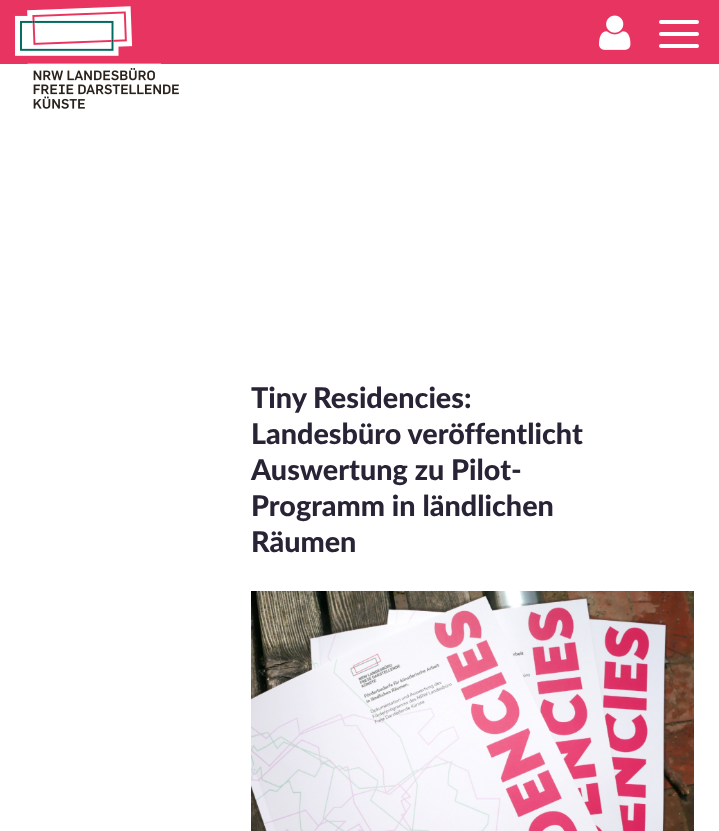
async function draw(canvas) {
  canvas.width = 719
  canvas.height = 831
  const ctx = canvas.getContext('2d')
  ctx.miterLimit = 4
  ctx.fontKerning = 'normal'
  async function loadImage(src) {
    const img = new Image()
    img.src = src
    await img.decode()
    return img
  }

  ctx.fillStyle = '#fff'
  ctx.fillRect(0, 0, 719, 831)
  ctx.fillStyle = '#e83460'
  ctx.fillRect(0, 0, 719, 64)
  ctx.drawImage(await loadImage('image0.png'), 15, 6, 164, 103)
  ctx.drawImage(await loadImage('image1.png'), 599, 15, 32, 35)
  ctx.fillStyle = '#fff'
  ctx.beginPath()
  ctx.roundRect(659, 20, 40, 4, 2)
  ctx.fill()
  ctx.beginPath()
  ctx.roundRect(659, 32, 40, 4, 2)
  ctx.fill()
  ctx.beginPath()
  ctx.roundRect(659, 44, 40, 4, 2)
  ctx.fill()
  ctx.font = '900 28.75px Lato'
  ctx.fillStyle = '#292336'
  ctx.fillText('Tiny Residencies:', 251, 408)
  ctx.fillText('Landesbüro veröffentlicht', 251, 444)
  ctx.fillText('Auswertung zu Pilot-', 251, 480)
  ctx.fillText('Programm in ländlichen', 251, 516)
  ctx.fillText('Räumen', 251, 552)
  ctx.drawImage(await loadImage('image2.png'), 251, 591, 443, 240)
}

draw(document.querySelector('canvas'))
